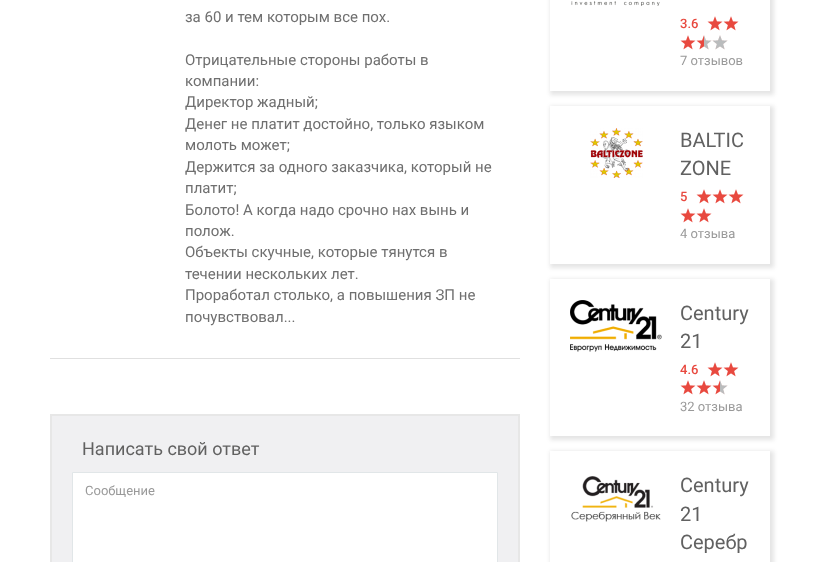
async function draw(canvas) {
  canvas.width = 820
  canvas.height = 562
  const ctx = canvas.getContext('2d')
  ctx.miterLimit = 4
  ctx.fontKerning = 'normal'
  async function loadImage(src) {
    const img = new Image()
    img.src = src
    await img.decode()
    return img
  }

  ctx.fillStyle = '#fff'
  ctx.fillRect(0, 0, 820, 562)
  ctx.fillStyle = '#e0e0e0'
  ctx.fillRect(50, 358, 470, 1)
  ctx.font = '15px Roboto'
  ctx.fillStyle = '#6f6f6f'
  ctx.fillText('за 60 и тем которым все пох.', 185, 22)
  ctx.fillText('Отрицательные стороны работы в', 185, 65)
  ctx.fillText('компании:', 185, 86)
  ctx.fillText('Директор жадный;', 185, 107)
  ctx.fillText('Денег не платит достойно, только языком', 185, 129)
  ctx.fillText('молоть может;', 185, 150)
  ctx.fillText('Держится за одного заказчика, который не', 185, 172)
  ctx.fillText('платит;', 185, 193)
  ctx.fillText('Болото! А когда надо срочно нах вынь и', 185, 215)
  ctx.fillText('полож.', 185, 236)
  ctx.fillText('Объекты скучные, которые тянутся в', 185, 257)
  ctx.fillText('течении нескольких лет.', 185, 279)
  ctx.fillText('Проработал столько, а повышения ЗП не', 185, 300)
  ctx.fillText('почувствовал...', 185, 322)
  ctx.fillStyle = '#f0f0f2'
  ctx.beginPath()
  ctx.rect(51, 415, 468, 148)
  ctx.fill()
  ctx.strokeStyle = '#e7e7e7'
  ctx.lineWidth = 2
  ctx.stroke()
  ctx.font = '18px Roboto'
  ctx.fillStyle = '#616161'
  ctx.fillText('Написать свой ответ', 82, 455)
  ctx.fillStyle = '#fff'
  ctx.beginPath()
  ctx.rect(72.5, 472.5, 425, 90)
  ctx.fill()
  ctx.strokeStyle = '#e1e6e8'
  ctx.lineWidth = 1
  ctx.stroke()
  ctx.font = '13px Roboto'
  ctx.fillStyle = '#999'
  ctx.fillText('Сообщение', 85, 495)
  ctx.save()
  ctx.beginPath()
  ctx.moveTo(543, 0)
  ctx.lineTo(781, 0)
  ctx.lineTo(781, 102)
  ctx.lineTo(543, 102)
  ctx.closePath()
  ctx.moveTo(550, -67)
  ctx.lineTo(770, -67)
  ctx.lineTo(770, 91)
  ctx.lineTo(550, 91)
  ctx.closePath()
  ctx.clip('evenodd')
  ctx.fillStyle = '#0000001a'
  ctx.filter = 'blur(2px)'
  ctx.beginPath()
  ctx.rect(550, -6, 224, 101)
  ctx.fill()
  ctx.filter = 'none'
  ctx.restore()
  ctx.drawImage(await loadImage('image0.png'), 571, 1, 89, 5)
  ctx.font = '500 13px Roboto'
  ctx.fillStyle = '#e8493f'
  ctx.fillText('3.6', 680, 28)
  ctx.drawImage(await loadImage('image1.png'), 707, 16, 16, 15)
  ctx.drawImage(await loadImage('image1.png'), 723, 16, 16, 15)
  ctx.drawImage(await loadImage('image1.png'), 680, 35, 16, 15)
  ctx.drawImage(await loadImage('image2.png'), 696, 35, 16, 15)
  ctx.drawImage(await loadImage('image3.png'), 712, 35, 16, 15)
  ctx.font = '13px Roboto'
  ctx.fillStyle = '#999'
  ctx.fillText('7 отзывов', 680, 65)
  ctx.save()
  ctx.beginPath()
  ctx.moveTo(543, 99)
  ctx.lineTo(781, 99)
  ctx.lineTo(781, 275)
  ctx.lineTo(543, 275)
  ctx.closePath()
  ctx.moveTo(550, 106)
  ctx.lineTo(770, 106)
  ctx.lineTo(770, 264)
  ctx.lineTo(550, 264)
  ctx.closePath()
  ctx.clip('evenodd')
  ctx.fillStyle = '#0000001a'
  ctx.filter = 'blur(2px)'
  ctx.beginPath()
  ctx.rect(550, 106, 224, 162)
  ctx.fill()
  ctx.filter = 'none'
  ctx.restore()
  ctx.drawImage(await loadImage('image4.png'), 590, 128, 53, 50)
  ctx.font = '20px Roboto'
  ctx.fillStyle = '#616161'
  ctx.fillText('BALTIC', 680, 147)
  ctx.fillText('ZONE', 680, 175)
  ctx.font = '500 13px Roboto'
  ctx.fillStyle = '#e8493f'
  ctx.fillText('5', 680, 201)
  ctx.drawImage(await loadImage('image1.png'), 696, 189, 16, 15)
  ctx.drawImage(await loadImage('image1.png'), 712, 189, 16, 15)
  ctx.drawImage(await loadImage('image1.png'), 728, 189, 16, 15)
  ctx.drawImage(await loadImage('image1.png'), 680, 208, 16, 15)
  ctx.drawImage(await loadImage('image1.png'), 696, 208, 16, 15)
  ctx.font = '13px Roboto'
  ctx.fillStyle = '#999'
  ctx.fillText('4 отзыва', 680, 238)
  ctx.save()
  ctx.beginPath()
  ctx.moveTo(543, 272)
  ctx.lineTo(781, 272)
  ctx.lineTo(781, 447)
  ctx.lineTo(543, 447)
  ctx.closePath()
  ctx.moveTo(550, 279)
  ctx.lineTo(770, 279)
  ctx.lineTo(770, 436)
  ctx.lineTo(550, 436)
  ctx.closePath()
  ctx.clip('evenodd')
  ctx.fillStyle = '#0000001a'
  ctx.filter = 'blur(2px)'
  ctx.beginPath()
  ctx.rect(550, 279, 224, 161)
  ctx.fill()
  ctx.filter = 'none'
  ctx.restore()
  ctx.drawImage(await loadImage('image5.png'), 570, 300, 92, 52)
  ctx.font = '20px Roboto'
  ctx.fillStyle = '#616161'
  ctx.fillText('Century', 680, 320)
  ctx.fillText('21', 680, 348)
  ctx.font = '500 13px Roboto'
  ctx.fillStyle = '#e8493f'
  ctx.fillText('4.6', 680, 374)
  ctx.drawImage(await loadImage('image1.png'), 707, 362, 16, 15)
  ctx.drawImage(await loadImage('image1.png'), 723, 362, 16, 15)
  ctx.drawImage(await loadImage('image1.png'), 680, 380, 16, 15)
  ctx.drawImage(await loadImage('image1.png'), 696, 380, 16, 15)
  ctx.drawImage(await loadImage('image2.png'), 712, 380, 16, 15)
  ctx.font = '13px Roboto'
  ctx.fillStyle = '#999'
  ctx.fillText('32 отзыва', 680, 411)
  ctx.save()
  ctx.beginPath()
  ctx.moveTo(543, 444)
  ctx.lineTo(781, 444)
  ctx.lineTo(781, 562)
  ctx.lineTo(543, 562)
  ctx.closePath()
  ctx.moveTo(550, 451)
  ctx.lineTo(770, 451)
  ctx.lineTo(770, 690)
  ctx.lineTo(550, 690)
  ctx.closePath()
  ctx.clip('evenodd')
  ctx.fillStyle = '#0000001a'
  ctx.filter = 'blur(2px)'
  ctx.beginPath()
  ctx.rect(550, 451, 224, 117)
  ctx.fill()
  ctx.filter = 'none'
  ctx.restore()
  ctx.drawImage(await loadImage('image6.png'), 571, 476, 90, 46)
  ctx.font = '20px Roboto'
  ctx.fillStyle = '#616161'
  ctx.fillText('Century', 680, 492)
  ctx.fillText('21', 680, 521)
  ctx.fillText('Серебр', 680, 549)
}

draw(document.querySelector('canvas'))
